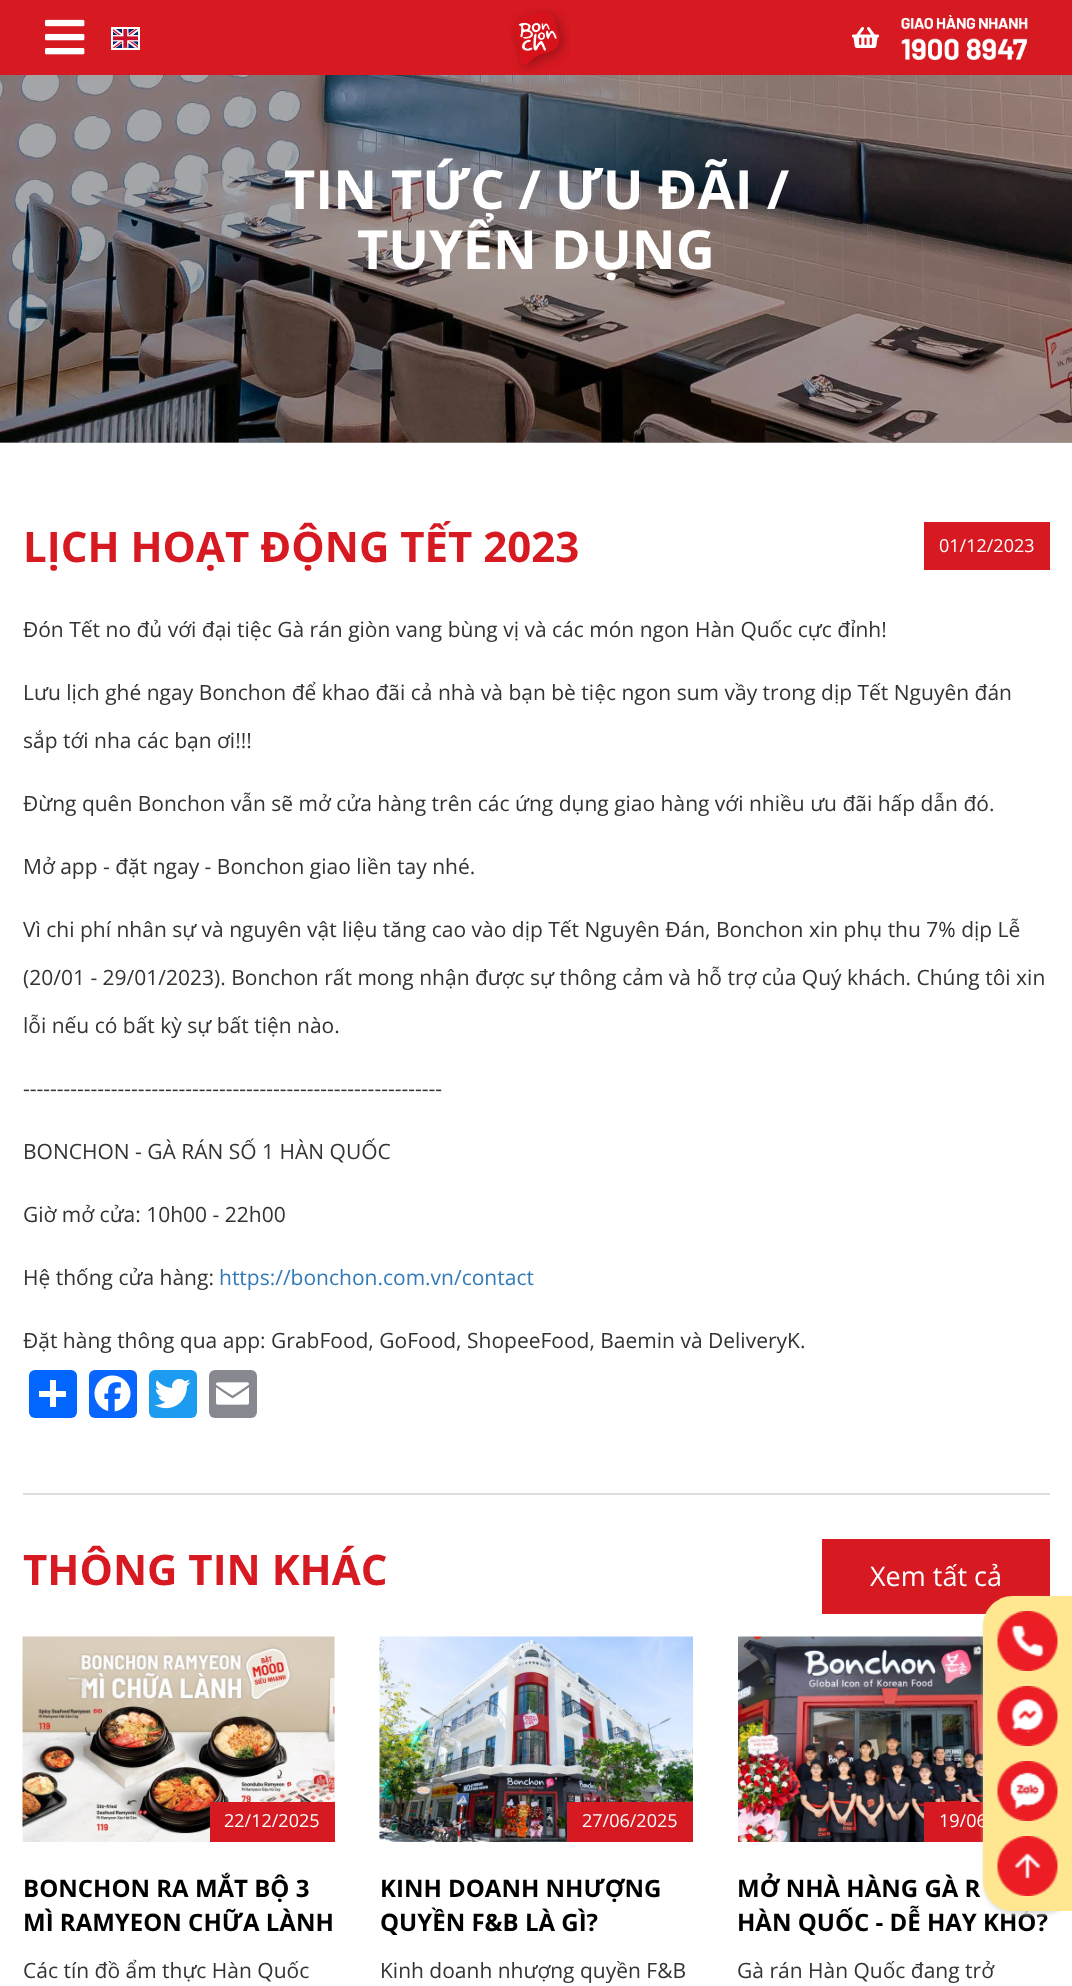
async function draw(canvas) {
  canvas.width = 1072
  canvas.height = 1986
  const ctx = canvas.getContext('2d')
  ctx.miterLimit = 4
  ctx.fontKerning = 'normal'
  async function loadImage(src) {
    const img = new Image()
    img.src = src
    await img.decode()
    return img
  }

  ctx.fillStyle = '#fff'
  ctx.fillRect(0, 0, 1072, 1986)
  ctx.fillStyle = '#ababab'
  ctx.fillRect(0, 442, 1072, 1)
  ctx.fillStyle = '#d71921'
  ctx.fillRect(0, 0, 1072, 75)
  ctx.drawImage(await loadImage('image0.png'), 45, 19, 40, 36)
  ctx.strokeStyle = '#fff'
  ctx.lineWidth = 2
  ctx.strokeRect(112, 28, 27, 21)
  ctx.drawImage(await loadImage('image1.png'), 113, 29, 25, 19)
  ctx.drawImage(await loadImage('image2.png'), 511, 8, 59, 65)
  ctx.drawImage(await loadImage('image3.png'), 852, 27, 27, 21)
  ctx.drawImage(await loadImage('image4.png'), 901, 15, 127, 45)
  ctx.drawImage(await loadImage('image5.png'), 0, 75, 1072, 368)
  ctx.font = 'bold 54px Open Sans'
  ctx.fillStyle = '#fff'
  ctx.fillText('TIN TỨC / ƯU ĐÃI /', 284, 209)
  ctx.fillText('TUYỂN DỤNG', 357, 269)
  ctx.font = 'bold 42px Open Sans'
  ctx.fillStyle = '#d71921'
  ctx.fillText('LỊCH HOẠT ĐỘNG TẾT 2023', 23, 562)
  ctx.fillRect(924, 522, 126, 48)
  ctx.font = '18px Open Sans'
  ctx.fillStyle = '#fff'
  ctx.fillText('01/12/2023', 939, 552)
  ctx.font = '21px Open Sans'
  ctx.fillStyle = '#333'
  ctx.fillText('Đón Tết no đủ với đại tiệc Gà rán giòn vang bùng vị và các món ngon Hàn Quốc cực đỉnh!', 23, 637)
  ctx.fillText('Lưu lịch ghé ngay Bonchon để khao đãi cả nhà và bạn bè tiệc ngon sum vầy trong dịp Tết Nguyên đán', 23, 700)
  ctx.fillText('sắp tới nha các bạn ơi!!!', 23, 748)
  ctx.fillText('Đừng quên Bonchon vẫn sẽ mở cửa hàng trên các ứng dụng giao hàng với nhiều ưu đãi hấp dẫn đó.', 23, 811)
  ctx.fillText('Mở app - đặt ngay - Bonchon giao liền tay nhé.', 23, 874)
  ctx.fillText('Vì chi phí nhân sự và nguyên vật liệu tăng cao vào dịp Tết Nguyên Đán, Bonchon xin phụ thu 7% dịp Lễ', 23, 937)
  ctx.fillText('(20/01 - 29/01/2023). Bonchon rất mong nhận được sự thông cảm và hỗ trợ của Quý khách. Chúng tôi xin', 23, 985)
  ctx.fillText('lỗi nếu có bất kỳ sự bất tiện nào.', 23, 1033)
  ctx.fillText('--------------------------------------------------------------', 23, 1096)
  ctx.fillText('BONCHON - GÀ RÁN SỐ 1 HÀN QUỐC', 23, 1159)
  ctx.fillText('Giờ mở cửa: 10h00 - 22h00', 23, 1222)
  ctx.fillText('Hệ thống cửa hàng:', 23, 1285)
  ctx.fillStyle = '#337ab7'
  ctx.fillText('https://bonchon.com.vn/contact', 219, 1285)
  ctx.fillStyle = '#333'
  ctx.fillText('Đặt hàng thông qua app: GrabFood, GoFood, ShopeeFood, Baemin và DeliveryK.', 23, 1348)
  ctx.fillStyle = '#0166ff'
  ctx.beginPath()
  ctx.roundRect(29, 1370, 48, 48, 6)
  ctx.fill()
  ctx.fillStyle = '#fff'
  ctx.fillRect(50, 1380, 6, 27)
  ctx.fillRect(39, 1391, 27, 6)
  ctx.fillStyle = '#0866ff'
  ctx.beginPath()
  ctx.roundRect(89, 1370, 48, 48, 6)
  ctx.fill()
  ctx.drawImage(await loadImage('image6.png'), 94, 1375, 37, 37)
  ctx.fillStyle = '#1d9bf0'
  ctx.beginPath()
  ctx.roundRect(149, 1370, 48, 48, 6)
  ctx.fill()
  ctx.drawImage(await loadImage('image7.png'), 154, 1378, 37, 31)
  ctx.fillStyle = '#888990'
  ctx.beginPath()
  ctx.roundRect(209, 1370, 48, 48, 6)
  ctx.fill()
  ctx.drawImage(await loadImage('image8.png'), 216, 1382, 33, 23)
  ctx.fillStyle = '#ddd'
  ctx.fillRect(23, 1493, 1027, 2)
  ctx.font = 'bold 42px Open Sans'
  ctx.fillStyle = '#d71921'
  ctx.fillText('THÔNG TIN KHÁC', 23, 1585)
  ctx.fillRect(822, 1539, 228, 75)
  ctx.font = '27px Open Sans'
  ctx.fillStyle = '#fff'
  ctx.fillText('Xem tất cả', 870, 1586)
  ctx.drawImage(await loadImage('image9.png'), 22, 1636, 313, 206)
  ctx.fillStyle = '#d71921'
  ctx.fillRect(210, 1802, 125, 40)
  ctx.font = '18px Open Sans'
  ctx.fillStyle = '#fff'
  ctx.fillText('22/12/2025', 224, 1827)
  ctx.font = 'bold 24px Open Sans'
  ctx.fillStyle = '#000'
  ctx.fillText('BONCHON RA MẮT BỘ 3', 23, 1897)
  ctx.fillText('MÌ RAMYEON CHỮA LÀNH', 23, 1931)
  ctx.font = '21px Open Sans'
  ctx.fillStyle = '#333'
  ctx.fillText('Các tín đồ ẩm thực Hàn Quốc', 23, 1978)
  ctx.drawImage(await loadImage('image10.png'), 379, 1636, 314, 206)
  ctx.fillStyle = '#d71921'
  ctx.fillRect(567, 1802, 126, 40)
  ctx.font = '18px Open Sans'
  ctx.fillStyle = '#fff'
  ctx.fillText('27/06/2025', 582, 1827)
  ctx.font = 'bold 24px Open Sans'
  ctx.fillStyle = '#000'
  ctx.fillText('KINH DOANH NHƯỢNG', 380, 1897)
  ctx.fillText('QUYỀN F&B LÀ GÌ?', 380, 1931)
  ctx.font = '21px Open Sans'
  ctx.fillStyle = '#333'
  ctx.fillText('Kinh doanh nhượng quyền F&B', 380, 1978)
  ctx.drawImage(await loadImage('image11.png'), 738, 1636, 245, 206)
  ctx.fillStyle = '#d71921'
  ctx.fillRect(924, 1802, 59, 40)
  ctx.font = '18px Open Sans'
  ctx.fillStyle = '#fff'
  ctx.fillText('19/06', 939, 1827)
  ctx.font = 'bold 24px Open Sans'
  ctx.fillStyle = '#000'
  ctx.fillText('MỞ NHÀ HÀNG GÀ R', 737, 1897)
  ctx.fillText('HÀN QUỐC - DỄ HAY KHÓ?', 737, 1931)
  ctx.font = '21px Open Sans'
  ctx.fillStyle = '#333'
  ctx.fillText('Gà rán Hàn Quốc đang trở', 737, 1978)
  ctx.fillStyle = '#ddd'
  ctx.filter = 'blur(2px)'
  ctx.beginPath()
  ctx.roundRect(984, 1599, 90, 315, 30)
  ctx.fill()
  ctx.filter = 'none'
  ctx.fillStyle = '#ffe792'
  ctx.beginPath()
  ctx.moveTo(1013, 1596)
  ctx.lineTo(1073, 1596)
  ctx.lineTo(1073, 1911)
  ctx.lineTo(1013, 1911)
  ctx.bezierCurveTo(996.5, 1911, 983, 1897.5, 983, 1881)
  ctx.lineTo(983, 1626)
  ctx.bezierCurveTo(983, 1609.5, 996.5, 1596, 1013, 1596)
  ctx.closePath()
  ctx.fill()
  ctx.drawImage(await loadImage('image12.png'), 997, 1611, 61, 60)
  ctx.drawImage(await loadImage('image13.png'), 997, 1686, 61, 60)
  ctx.drawImage(await loadImage('image14.png'), 997, 1761, 61, 60)
  ctx.drawImage(await loadImage('image15.png'), 997, 1836, 61, 60)
}

draw(document.querySelector('canvas'))
